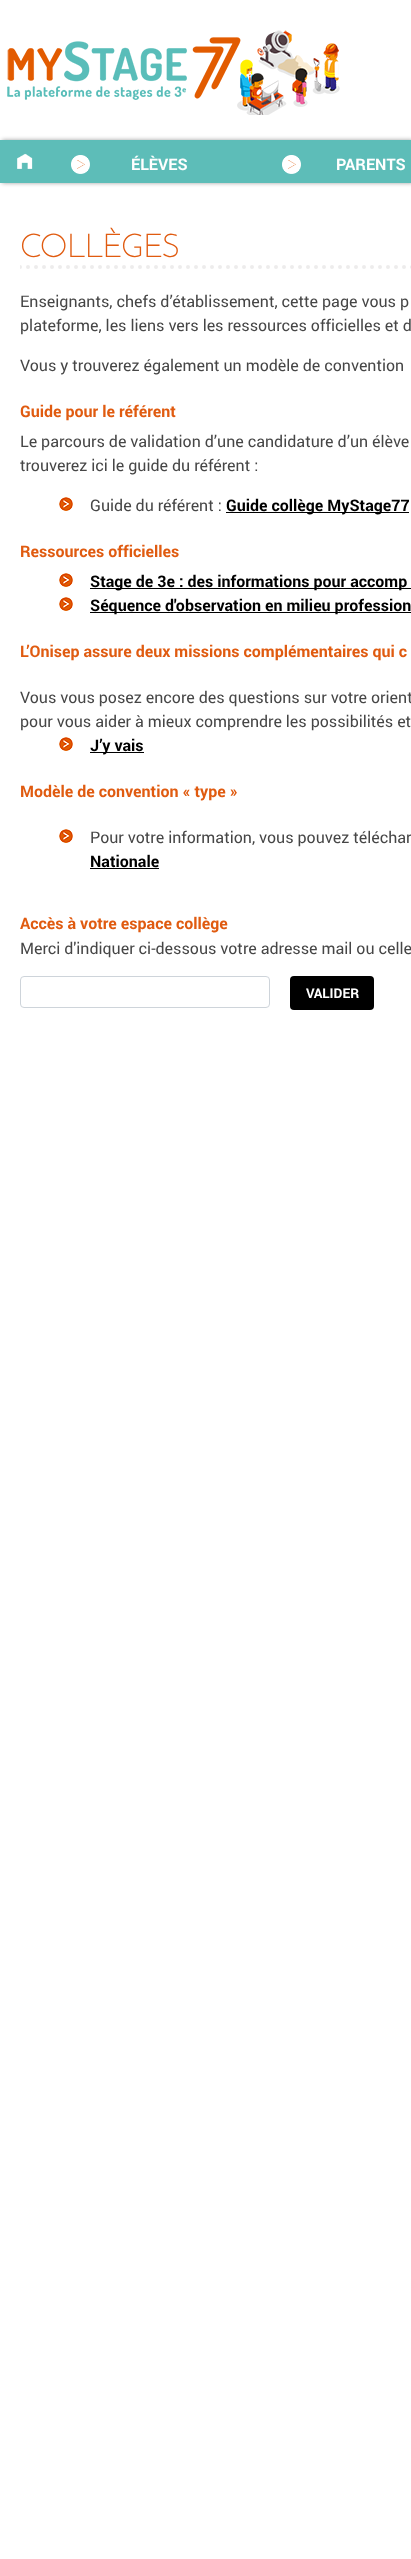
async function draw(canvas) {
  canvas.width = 411
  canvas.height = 2559
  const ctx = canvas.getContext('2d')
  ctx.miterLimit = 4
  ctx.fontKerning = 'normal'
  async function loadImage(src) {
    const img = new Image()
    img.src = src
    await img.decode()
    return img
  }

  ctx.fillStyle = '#fff'
  ctx.fillRect(0, 0, 411, 2559)
  ctx.drawImage(await loadImage('image0.png'), 7, 30, 333, 85)
  ctx.fillStyle = '#00010161'
  ctx.filter = 'blur(2px)'
  ctx.beginPath()
  ctx.rect(2, 140, 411, 43)
  ctx.fill()
  ctx.filter = 'none'
  ctx.fillStyle = '#5dbdb8'
  ctx.fillRect(0, 140, 411, 43)
  ctx.drawImage(await loadImage('image1.png'), 17, 153, 16, 16)
  ctx.drawImage(await loadImage('image2.png'), 71, 155, 19, 19)
  ctx.font = 'bold 16px Roboto'
  ctx.fillStyle = '#fff'
  ctx.fillText('ÉLÈVES', 131, 170)
  ctx.drawImage(await loadImage('image2.png'), 282, 155, 19, 19)
  ctx.fillText('PARENTS', 336, 170)
  ctx.font = 'bold 32px Josefin Sans'
  ctx.fillStyle = '#e05b10'
  ctx.fillText('COLLÈGES', 20, 257)
  ctx.save()
  ctx.beginPath()
  ctx.rect(20, 223, 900, 66)
  ctx.clip()
  ctx.beginPath()
  ctx.moveTo(20, 267)
  ctx.lineTo(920, 267)
  ctx.strokeStyle = '#edecec'
  ctx.lineWidth = 4
  ctx.lineCap = 'round'
  ctx.setLineDash([0, 8])
  ctx.stroke()
  ctx.restore()
  ctx.font = '16px Roboto'
  ctx.fillStyle = '#464646'
  ctx.fillText('Enseignants, chefs d’établissement, cette page vous p', 20, 307)
  ctx.fillText('plateforme, les liens vers les ressources officielles et d', 20, 331)
  ctx.fillText('Vous y trouverez également un modèle de convention', 20, 371)
  ctx.font = 'bold 16px Roboto'
  ctx.fillStyle = '#e05b10'
  ctx.fillText('Guide pour le référent', 20, 417)
  ctx.font = '16px Roboto'
  ctx.fillStyle = '#464646'
  ctx.fillText('Le parcours de validation d’une candidature d’un élève', 20, 447)
  ctx.fillText('trouverez ici le guide du référent :', 20, 471)
  ctx.drawImage(await loadImage('image3.png'), 59, 497, 14, 14)
  ctx.fillText('Guide du référent :', 90, 511)
  ctx.fillStyle = '#000'
  ctx.fillRect(226, 512, 183, 1)
  ctx.font = 'bold 16px Roboto'
  ctx.fillText('Guide collège MyStage77', 226, 511)
  ctx.fillStyle = '#e05b10'
  ctx.fillText('Ressources officielles', 20, 557)
  ctx.drawImage(await loadImage('image3.png'), 59, 573, 14, 14)
  ctx.fillStyle = '#000'
  ctx.fillRect(90, 588, 321, 1)
  ctx.fillText('Stage de 3e : des informations pour accomp', 90, 587)
  ctx.drawImage(await loadImage('image3.png'), 59, 597, 14, 14)
  ctx.fillRect(90, 612, 321, 1)
  ctx.fillText('Séquence d\'observation en milieu profession', 90, 611)
  ctx.fillStyle = '#e05b10'
  ctx.fillText('L’Onisep assure deux missions complémentaires qui c', 20, 657)
  ctx.font = '16px Roboto'
  ctx.fillStyle = '#464646'
  ctx.fillText('Vous vous posez encore des questions sur votre orient', 20, 703)
  ctx.fillText('pour vous aider à mieux comprendre les possibilités et', 20, 727)
  ctx.drawImage(await loadImage('image3.png'), 59, 737, 14, 14)
  ctx.fillStyle = '#000'
  ctx.fillRect(90, 752, 54, 1)
  ctx.font = 'bold 16px Roboto'
  ctx.fillText('J’y vais', 90, 751)
  ctx.fillStyle = '#e05b10'
  ctx.fillText('Modèle de convention « type »', 20, 797)
  ctx.drawImage(await loadImage('image3.png'), 59, 829, 14, 14)
  ctx.font = '16px Roboto'
  ctx.fillStyle = '#464646'
  ctx.fillText('Pour votre information, vous pouvez téléchar', 90, 843)
  ctx.font = 'bold 16px Roboto'
  ctx.fillStyle = '#000'
  ctx.fillText('Nationale', 90, 867)
  ctx.fillRect(90, 868, 69, 1)
  ctx.fillStyle = '#e05b10'
  ctx.fillText('Accès à votre espace collège', 20, 929)
  ctx.font = '16px Roboto'
  ctx.fillStyle = '#464646'
  ctx.fillText('Merci d\'indiquer ci-dessous votre adresse mail ou celle', 20, 954)
  ctx.beginPath()
  ctx.roundRect(20.5, 976.5, 249, 31, 3.5)
  ctx.strokeStyle = '#ced4da'
  ctx.stroke()
  ctx.fillStyle = '#000'
  ctx.beginPath()
  ctx.roundRect(290, 976, 84, 34, 4)
  ctx.fill()
  ctx.font = 'bold 13.5px Roboto'
  ctx.fillStyle = '#fff'
  ctx.fillText('VALIDER', 306, 998)
}

draw(document.querySelector('canvas'))
